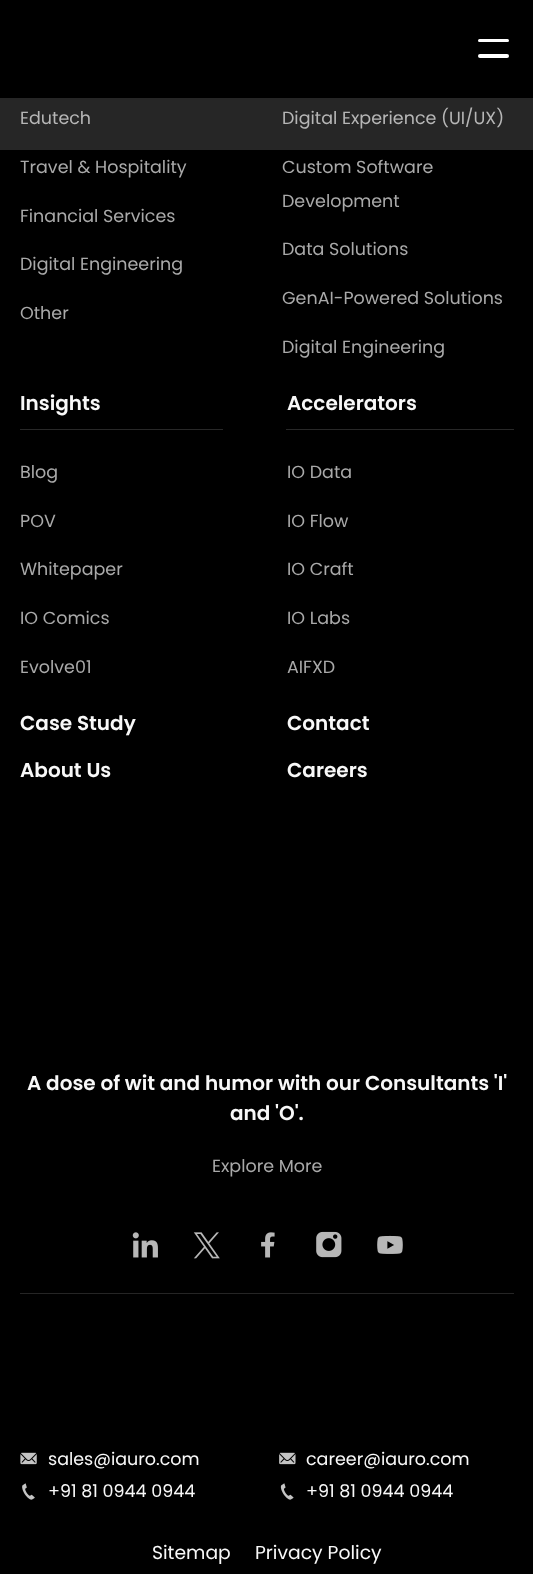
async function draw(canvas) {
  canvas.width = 533
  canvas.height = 1574
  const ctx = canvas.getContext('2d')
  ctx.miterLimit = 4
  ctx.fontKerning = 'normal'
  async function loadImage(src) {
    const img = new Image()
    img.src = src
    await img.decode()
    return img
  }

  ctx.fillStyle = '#000'
  ctx.fillRect(0, 0, 533, 1574)
  ctx.fillStyle = '#fff'
  ctx.beginPath()
  ctx.roundRect(478, 39, 31, 3, 1.5)
  ctx.fill()
  ctx.beginPath()
  ctx.roundRect(478, 54, 31, 4, 2)
  ctx.fill()
  ctx.fillStyle = '#262626'
  ctx.fillRect(0, 98, 533, 52)
  ctx.font = '17.5px Poppins'
  ctx.fillStyle = '#b6b6b6'
  ctx.fillText('Edutech', 20, 124)
  ctx.fillStyle = '#a9a9a9'
  ctx.fillText('Travel & Hospitality', 20, 173)
  ctx.fillText('Financial Services', 20, 222)
  ctx.fillText('Digital Engineering', 20, 270)
  ctx.fillText('Other', 20, 319)
  ctx.fillStyle = '#b6b6b6'
  ctx.fillText('Digital Experience (UI/UX)', 282, 124)
  ctx.fillStyle = '#a9a9a9'
  ctx.fillText('Custom Software', 282, 173)
  ctx.fillText('Development', 282, 207)
  ctx.fillText('Data Solutions', 282, 255)
  ctx.fillText('GenAI-Powered Solutions', 282, 304)
  ctx.fillText('Digital Engineering', 282, 353)
  ctx.fillStyle = '#282828'
  ctx.fillRect(20, 429, 203, 1)
  ctx.font = '600 20px Poppins'
  ctx.fillStyle = '#f8f8f8'
  ctx.fillText('Insights', 20, 410)
  ctx.font = '17.5px Poppins'
  ctx.fillStyle = '#a9a9a9'
  ctx.fillText('Blog', 20, 478)
  ctx.fillText('POV', 20, 527)
  ctx.fillText('Whitepaper', 20, 575)
  ctx.fillText('IO Comics', 20, 624)
  ctx.fillText('Evolve01', 20, 673)
  ctx.fillStyle = '#282828'
  ctx.fillRect(286, 429, 228, 1)
  ctx.font = '600 20px Poppins'
  ctx.fillStyle = '#f8f8f8'
  ctx.fillText('Accelerators', 287, 410)
  ctx.font = '17.5px Poppins'
  ctx.fillStyle = '#a9a9a9'
  ctx.fillText('IO Data', 287, 478)
  ctx.fillText('IO Flow', 287, 527)
  ctx.fillText('IO Craft', 287, 575)
  ctx.fillText('IO Labs', 287, 624)
  ctx.fillText('AIFXD', 287, 673)
  ctx.font = '600 20px Poppins'
  ctx.fillStyle = '#f8f8f8'
  ctx.fillText('Case Study', 20, 730)
  ctx.fillText('About Us', 20, 777)
  ctx.fillText('Contact', 287, 730)
  ctx.fillText('Careers', 287, 777)
  ctx.fillText('A dose of wit and humor with our Consultants \'I\'', 27, 1090)
  ctx.fillText('and \'O\'.', 230, 1120)
  ctx.font = '17.5px Poppins'
  ctx.fillStyle = '#a9a9a9'
  ctx.fillText('Explore More', 212, 1172)
  ctx.drawImage(await loadImage('image0.png'), 132, 1232, 26, 26)
  ctx.drawImage(await loadImage('image1.png'), 193, 1232, 27, 27)
  ctx.drawImage(await loadImage('image2.png'), 261, 1232, 14, 26)
  ctx.drawImage(await loadImage('image3.png'), 316, 1231, 26, 27)
  ctx.drawImage(await loadImage('image4.png'), 377, 1235, 26, 19)
  ctx.fillStyle = '#252525'
  ctx.fillRect(20, 1293, 494, 1)
  ctx.drawImage(await loadImage('image5.png'), 20, 1452, 17, 13)
  ctx.fillStyle = '#f8f8f8'
  ctx.fillText('sales@iauro.com', 48, 1465)
  ctx.drawImage(await loadImage('image6.png'), 22, 1483, 13, 17)
  ctx.fillText('+91 81 0944 0944', 48, 1497)
  ctx.drawImage(await loadImage('image7.png'), 279, 1452, 17, 13)
  ctx.fillText('career@iauro.com', 306, 1465)
  ctx.drawImage(await loadImage('image8.png'), 280, 1483, 14, 17)
  ctx.fillText('+91 81 0944 0944', 306, 1497)
  ctx.font = '18.75px Poppins'
  ctx.fillText('Sitemap', 152, 1559)
  ctx.fillText('Privacy Policy', 255, 1559)
}

draw(document.querySelector('canvas'))
